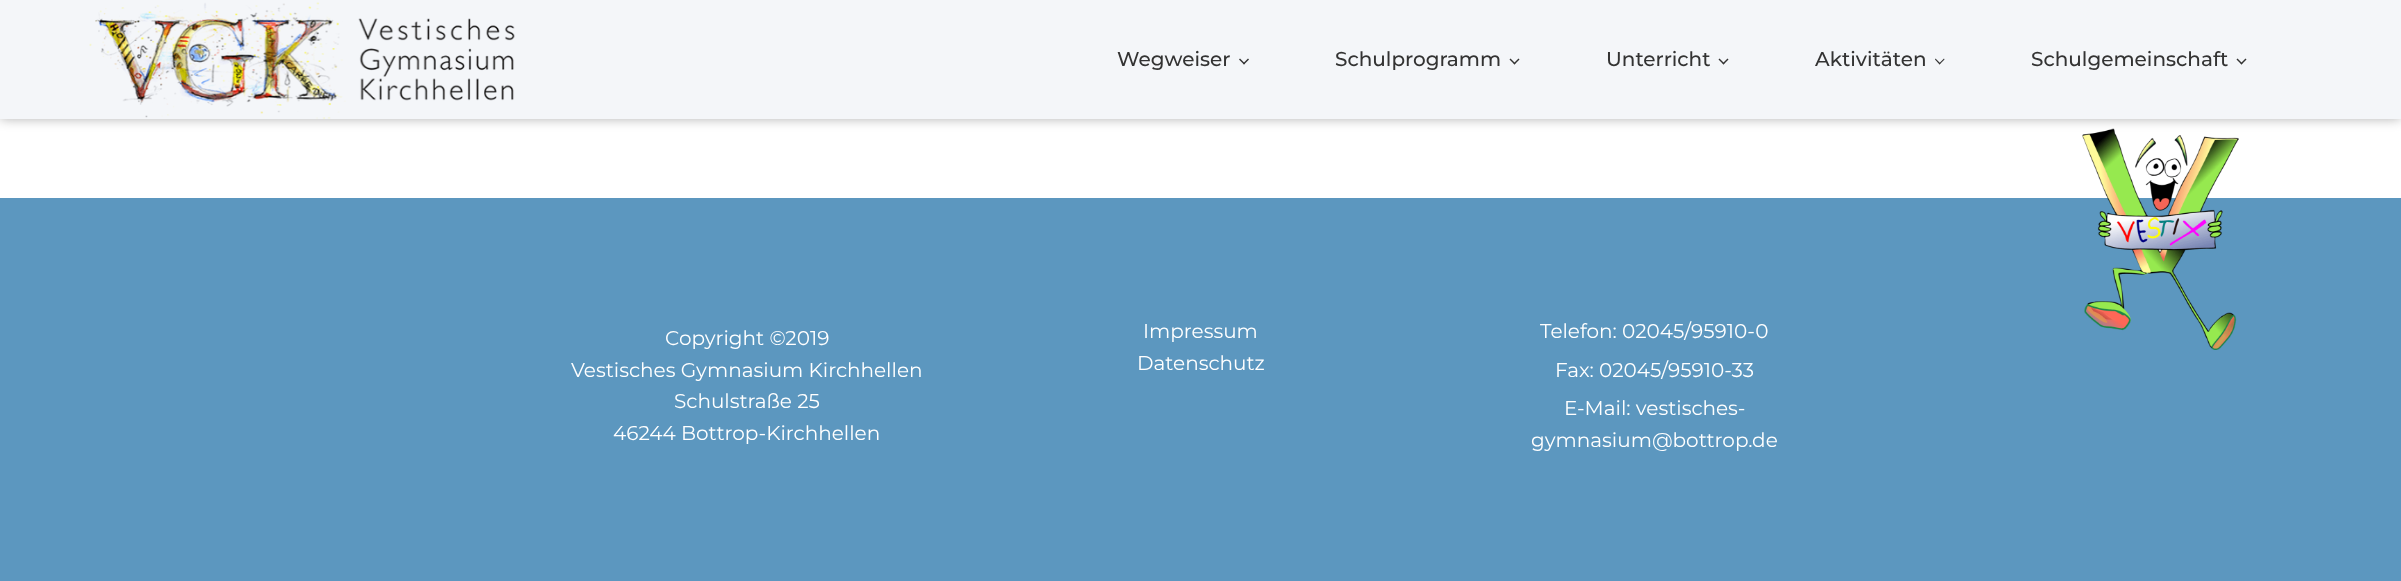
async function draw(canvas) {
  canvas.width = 2401
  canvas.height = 581
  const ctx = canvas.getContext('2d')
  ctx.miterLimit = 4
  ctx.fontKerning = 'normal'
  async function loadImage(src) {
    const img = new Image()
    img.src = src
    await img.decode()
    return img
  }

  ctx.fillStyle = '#fff'
  ctx.fillRect(0, 0, 2401, 581)
  ctx.fillStyle = '#5c97bf'
  ctx.fillRect(0, 198, 2401, 383)
  ctx.drawImage(await loadImage('image1.png'), 2082, 128, 157, 222)
  ctx.fillStyle = '#0000004d'
  ctx.filter = 'blur(6px)'
  ctx.beginPath()
  ctx.rect(0, 0, 2401, 119)
  ctx.fill()
  ctx.filter = 'none'
  ctx.fillStyle = '#f4f6f9'
  ctx.fillRect(0, 0, 2401, 119)
  ctx.drawImage(await loadImage('image0.png'), 89, 2, 426, 117)
  ctx.font = '500 20px Montserrat'
  ctx.fillStyle = '#333'
  ctx.fillText('Wegweiser', 1117, 66)
  ctx.beginPath()
  ctx.moveTo(1249, 59.5)
  ctx.lineTo(1244, 64.5)
  ctx.lineTo(1243, 63.5)
  ctx.lineTo(1248, 58.5)
  ctx.closePath()
  ctx.fill()
  ctx.beginPath()
  ctx.moveTo(1245, 63.5)
  ctx.lineTo(1244, 64.5)
  ctx.lineTo(1239, 59.5)
  ctx.lineTo(1240, 58.5)
  ctx.closePath()
  ctx.fill()
  ctx.fillText('Schulprogramm', 1335, 66)
  ctx.beginPath()
  ctx.moveTo(1519.5, 59.5)
  ctx.lineTo(1514.5, 64.5)
  ctx.lineTo(1513.5, 63.5)
  ctx.lineTo(1518.5, 58.5)
  ctx.closePath()
  ctx.fill()
  ctx.beginPath()
  ctx.moveTo(1515.5, 63.5)
  ctx.lineTo(1514.5, 64.5)
  ctx.lineTo(1509.5, 59.5)
  ctx.lineTo(1510.5, 58.5)
  ctx.closePath()
  ctx.fill()
  ctx.fillText('Unterricht', 1606, 66)
  ctx.beginPath()
  ctx.moveTo(1728.5, 59.5)
  ctx.lineTo(1723.5, 64.5)
  ctx.lineTo(1722.5, 63.5)
  ctx.lineTo(1727.5, 58.5)
  ctx.closePath()
  ctx.fill()
  ctx.beginPath()
  ctx.moveTo(1724.5, 63.5)
  ctx.lineTo(1723.5, 64.5)
  ctx.lineTo(1718.5, 59.5)
  ctx.lineTo(1719.5, 58.5)
  ctx.closePath()
  ctx.fill()
  ctx.fillText('Aktivitäten', 1815, 66)
  ctx.beginPath()
  ctx.moveTo(1944.5, 59.5)
  ctx.lineTo(1939.5, 64.5)
  ctx.lineTo(1939, 63.5)
  ctx.lineTo(1944, 58.5)
  ctx.closePath()
  ctx.fill()
  ctx.beginPath()
  ctx.moveTo(1940.5, 63.5)
  ctx.lineTo(1939.5, 64.5)
  ctx.lineTo(1935, 59.5)
  ctx.lineTo(1935.5, 58.5)
  ctx.closePath()
  ctx.fill()
  ctx.fillText('Schulgemeinschaft', 2031, 66)
  ctx.beginPath()
  ctx.moveTo(2246.5, 59.5)
  ctx.lineTo(2241.5, 64.5)
  ctx.lineTo(2240.5, 63.5)
  ctx.lineTo(2245.5, 58.5)
  ctx.closePath()
  ctx.fill()
  ctx.beginPath()
  ctx.moveTo(2242.5, 63.5)
  ctx.lineTo(2241.5, 64.5)
  ctx.lineTo(2236.5, 59.5)
  ctx.lineTo(2237.5, 58.5)
  ctx.closePath()
  ctx.fill()
  ctx.font = '20px Montserrat'
  ctx.fillStyle = '#fff'
  ctx.fillText('Copyright ©2019', 665, 345)
  ctx.fillText('Vestisches Gymnasium Kirchhellen', 571, 377)
  ctx.fillText('Schulstraße 25', 674, 408)
  ctx.fillText('46244 Bottrop-Kirchhellen', 613, 440)
  ctx.fillText('Impressum', 1143, 338)
  ctx.fillText('Datenschutz', 1137, 370)
  ctx.fillText('Telefon: 02045/95910-0', 1540, 338)
  ctx.fillText('Fax: 02045/95910-33', 1555, 377)
  ctx.fillText('E-Mail: vestisches-', 1564, 415)
  ctx.fillText('gymnasium@bottrop.de', 1531, 447)
}

draw(document.querySelector('canvas'))
